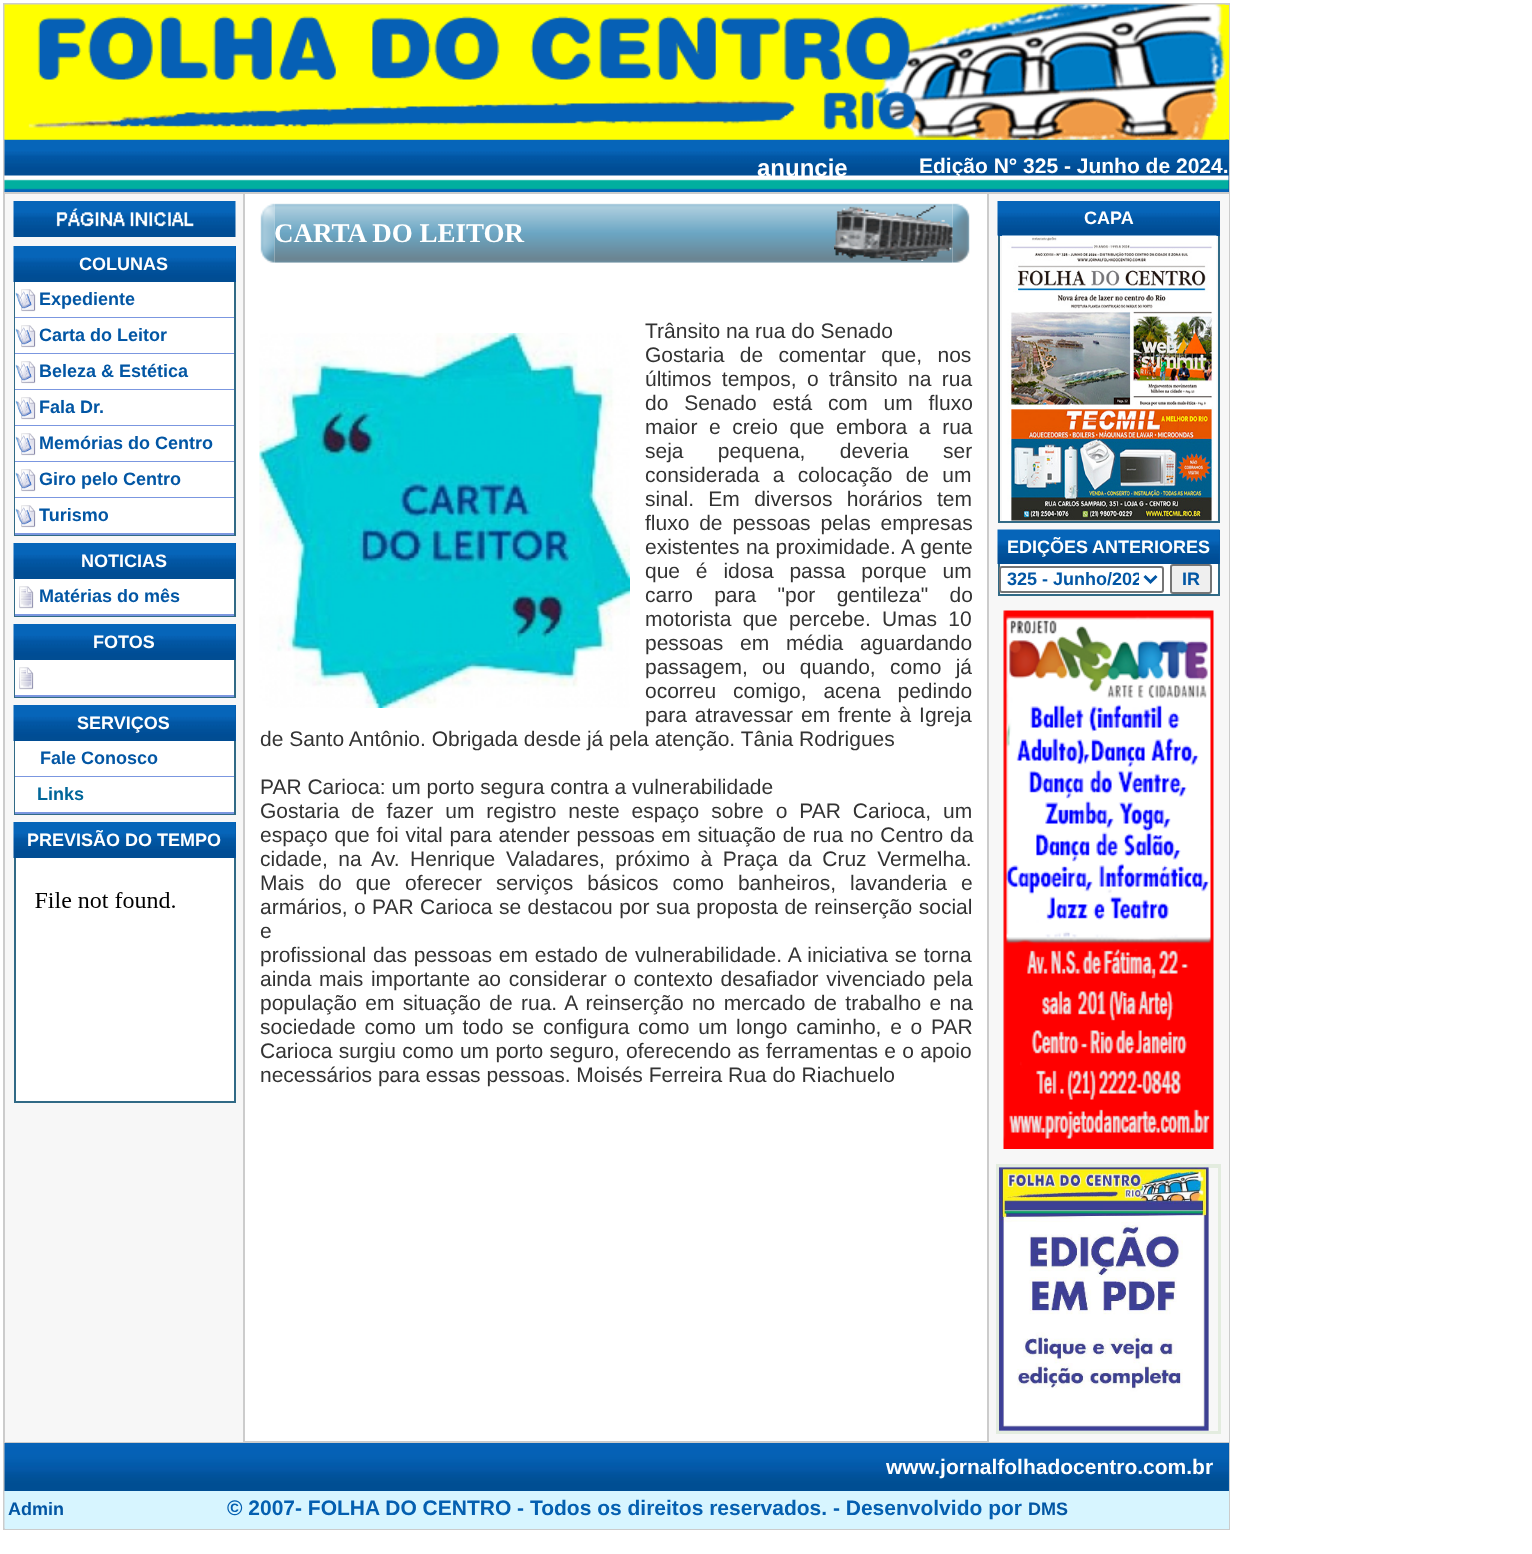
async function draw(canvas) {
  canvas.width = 1532
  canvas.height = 1554
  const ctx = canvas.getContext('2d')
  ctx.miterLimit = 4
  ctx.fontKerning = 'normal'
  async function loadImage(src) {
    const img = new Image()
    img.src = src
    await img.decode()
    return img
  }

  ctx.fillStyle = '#fff'
  ctx.fillRect(0, 0, 1532, 1554)
  ctx.strokeStyle = '#ccc'
  ctx.lineWidth = 2
  ctx.strokeRect(4, 4, 1225, 1525)
  ctx.fillStyle = '#ff0'
  ctx.fillRect(5, 5, 1224, 135)
  ctx.drawImage(await loadImage('image1.png'), 4, 139, 857, 53)
  ctx.fillStyle = '#0256a4'
  ctx.fillRect(1228, 140, 1, 52)
  ctx.drawImage(await loadImage('image2.png'), 861, 139, 368, 53)
  ctx.drawImage(await loadImage('image0.png'), 4, 4, 1222, 136)
  ctx.font = 'bold 24px Liberation Sans'
  ctx.fillStyle = '#fff'
  ctx.fillText('anuncie', 757, 176)
  ctx.font = 'bold 21px Liberation Sans'
  ctx.fillText('Edição N° 325 - Junho de 2024.', 919, 173)
  ctx.fillStyle = '#f7f7f7'
  ctx.fillRect(5, 194, 238, 1248)
  ctx.fillStyle = '#ccc'
  ctx.fillRect(5, 192, 238, 2)
  ctx.fillRect(5, 1442, 238, 1)
  ctx.drawImage(await loadImage('image3.png'), 13, 201, 223, 36)
  ctx.drawImage(await loadImage('image4.png'), 56, 208, 138, 19)
  ctx.fillStyle = '#0256a4'
  ctx.fillRect(235, 246, 1, 36)
  ctx.drawImage(await loadImage('image5.png'), 13, 246, 223, 36)
  ctx.font = 'bold 18px Liberation Sans'
  ctx.fillStyle = '#fff'
  ctx.fillText('COLUNAS', 79, 270)
  ctx.fillStyle = '#316a86'
  ctx.fillRect(234, 282, 2, 254)
  ctx.fillRect(14, 534, 222, 2)
  ctx.fillRect(14, 282, 2, 254)
  ctx.fillStyle = '#fff'
  ctx.fillRect(15, 282, 219, 35)
  ctx.fillStyle = '#7b97e0'
  ctx.fillRect(15, 317, 219, 1)
  ctx.drawImage(await loadImage('image6.png'), 15, 289, 21, 23)
  ctx.fillStyle = '#0256a4'
  ctx.fillText('Expediente', 39, 305)
  ctx.fillStyle = '#fff'
  ctx.fillRect(15, 318, 219, 35)
  ctx.fillStyle = '#7b97e0'
  ctx.fillRect(15, 353, 219, 1)
  ctx.drawImage(await loadImage('image6.png'), 15, 325, 21, 23)
  ctx.fillStyle = '#0256a4'
  ctx.fillText('Carta do Leitor', 39, 341)
  ctx.fillStyle = '#fff'
  ctx.fillRect(15, 354, 219, 35)
  ctx.fillStyle = '#7b97e0'
  ctx.fillRect(15, 389, 219, 1)
  ctx.drawImage(await loadImage('image6.png'), 15, 361, 21, 23)
  ctx.fillStyle = '#0256a4'
  ctx.fillText('Beleza & Estética', 39, 377)
  ctx.fillStyle = '#fff'
  ctx.fillRect(15, 390, 219, 35)
  ctx.fillStyle = '#7b97e0'
  ctx.fillRect(15, 425, 219, 1)
  ctx.drawImage(await loadImage('image6.png'), 15, 397, 21, 23)
  ctx.fillStyle = '#0256a4'
  ctx.fillText('Fala Dr.', 39, 413)
  ctx.fillStyle = '#fff'
  ctx.fillRect(15, 426, 219, 35)
  ctx.fillStyle = '#7b97e0'
  ctx.fillRect(15, 461, 219, 1)
  ctx.drawImage(await loadImage('image6.png'), 15, 433, 21, 23)
  ctx.fillStyle = '#0256a4'
  ctx.fillText('Memórias do Centro', 39, 449)
  ctx.fillStyle = '#fff'
  ctx.fillRect(15, 462, 219, 35)
  ctx.fillStyle = '#7b97e0'
  ctx.fillRect(15, 497, 219, 1)
  ctx.drawImage(await loadImage('image6.png'), 15, 469, 21, 23)
  ctx.fillStyle = '#0256a4'
  ctx.fillText('Giro pelo Centro', 39, 485)
  ctx.fillStyle = '#fff'
  ctx.fillRect(15, 498, 219, 35)
  ctx.fillStyle = '#7b97e0'
  ctx.fillRect(15, 533, 219, 2)
  ctx.drawImage(await loadImage('image6.png'), 15, 505, 21, 23)
  ctx.fillStyle = '#0256a4'
  ctx.fillText('Turismo', 39, 521)
  ctx.fillRect(235, 543, 1, 36)
  ctx.drawImage(await loadImage('image5.png'), 13, 543, 223, 36)
  ctx.fillStyle = '#fff'
  ctx.fillText('NOTICIAS', 81, 567)
  ctx.fillStyle = '#316a86'
  ctx.fillRect(234, 579, 2, 38)
  ctx.fillRect(14, 615, 222, 2)
  ctx.fillRect(14, 579, 2, 38)
  ctx.fillStyle = '#fff'
  ctx.fillRect(15, 579, 219, 35)
  ctx.fillStyle = '#7b97e0'
  ctx.fillRect(15, 614, 219, 2)
  ctx.drawImage(await loadImage('image7.png'), 19, 586, 15, 23)
  ctx.fillStyle = '#0256a4'
  ctx.fillText('Matérias do mês', 39, 602)
  ctx.fillRect(235, 624, 1, 36)
  ctx.drawImage(await loadImage('image8.png'), 13, 624, 223, 36)
  ctx.fillStyle = '#fff'
  ctx.fillText('FOTOS', 93, 648)
  ctx.fillStyle = '#316a86'
  ctx.fillRect(234, 660, 2, 38)
  ctx.fillRect(14, 696, 222, 2)
  ctx.fillRect(14, 660, 2, 38)
  ctx.fillStyle = '#fff'
  ctx.fillRect(15, 660, 219, 35)
  ctx.fillStyle = '#7b97e0'
  ctx.fillRect(15, 695, 219, 2)
  ctx.drawImage(await loadImage('image7.png'), 19, 667, 15, 23)
  ctx.fillStyle = '#0256a4'
  ctx.fillRect(235, 705, 1, 36)
  ctx.drawImage(await loadImage('image9.png'), 13, 705, 223, 36)
  ctx.fillStyle = '#fff'
  ctx.fillText('SERVIÇOS', 77, 729)
  ctx.fillStyle = '#316a86'
  ctx.fillRect(234, 741, 2, 74)
  ctx.fillRect(14, 813, 222, 2)
  ctx.fillRect(14, 741, 2, 74)
  ctx.fillStyle = '#fff'
  ctx.fillRect(15, 741, 219, 35)
  ctx.fillStyle = '#7b97e0'
  ctx.fillRect(15, 776, 219, 1)
  ctx.fillStyle = '#0256a4'
  ctx.fillText('Fale Conosco', 40, 764)
  ctx.fillStyle = '#fff'
  ctx.fillRect(15, 777, 219, 35)
  ctx.fillStyle = '#7b97e0'
  ctx.fillRect(15, 812, 219, 2)
  ctx.fillStyle = '#069'
  ctx.fillText('Links', 37, 800)
  ctx.fillStyle = '#0256a4'
  ctx.fillRect(235, 822, 1, 36)
  ctx.drawImage(await loadImage('image10.png'), 13, 822, 223, 36)
  ctx.fillStyle = '#fff'
  ctx.fillText('PREVISÃO DO TEMPO', 27, 846)
  ctx.fillRect(16, 858, 218, 243)
  ctx.fillStyle = '#316a86'
  ctx.fillRect(234, 858, 2, 245)
  ctx.fillRect(14, 1101, 222, 2)
  ctx.fillRect(14, 858, 2, 245)
  ctx.drawImage(await loadImage('image11.png'), 35, 892, 140, 16)
  ctx.strokeRect(244, 193, 744, 1249)
  ctx.drawImage(await loadImage('image12.png'), 260, 203, 15, 60)
  ctx.drawImage(await loadImage('image13.png'), 274, 203, 527, 60)
  ctx.font = 'bold 27px Liberation Serif'
  ctx.fillStyle = '#fff'
  ctx.fillText('CARTA DO LEITOR', 274, 242)
  ctx.drawImage(await loadImage('image14.png'), 801, 203, 152, 60)
  ctx.drawImage(await loadImage('image16.png'), 952, 203, 18, 60)
  ctx.drawImage(await loadImage('image15.png'), 834, 205, 119, 56)
  ctx.font = '21px Liberation Sans'
  ctx.fillStyle = '#333'
  ctx.fillText('Trânsito na rua do Senado', 645, 338)
  ctx.wordSpacing = '9.5px'
  ctx.fillText('Gostaria de comentar que, nos', 645, 362)
  ctx.wordSpacing = '4.5px'
  ctx.fillText('últimos tempos, o trânsito na rua', 645, 386)
  ctx.wordSpacing = '10px'
  ctx.fillText('do Senado está com um fluxo', 645, 410)
  ctx.wordSpacing = '5.75px'
  ctx.fillText('maior e creio que embora a rua', 645, 434)
  ctx.wordSpacing = '28.5px'
  ctx.fillText('seja pequena, deveria ser', 645, 458)
  ctx.wordSpacing = '7.5px'
  ctx.fillText('considerada a colocação de um', 645, 482)
  ctx.wordSpacing = '8.5px'
  ctx.fillText('sinal. Em diversos horários tem', 645, 506)
  ctx.wordSpacing = '4px'
  ctx.fillText('fluxo de pessoas pelas empresas', 645, 530)
  ctx.wordSpacing = '0.5px'
  ctx.fillText('existentes na proximidade. A gente', 645, 554)
  ctx.wordSpacing = '10px'
  ctx.fillText('que é idosa passa porque um', 645, 578)
  ctx.wordSpacing = '15.5px'
  ctx.fillText('carro para "por gentileza" do', 645, 602)
  ctx.wordSpacing = '5.5px'
  ctx.fillText('motorista que percebe. Umas 10', 645, 626)
  ctx.wordSpacing = '11px'
  ctx.fillText('pessoas em média aguardando', 645, 650)
  ctx.wordSpacing = '8.5px'
  ctx.fillText('passagem, ou quando, como já', 645, 674)
  ctx.wordSpacing = '11px'
  ctx.fillText('ocorreu comigo, acena pedindo', 645, 698)
  ctx.wordSpacing = '2px'
  ctx.fillText('para atravessar', 645, 722)
  ctx.fillText('em frente à Igreja', 801, 722)
  ctx.wordSpacing = '0px'
  ctx.fillText('de Santo Antônio. Obrigada desde já pela atenção. Tânia Rodrigues', 260, 746)
  ctx.fillText('PAR Carioca: um porto segura contra a vulnerabilidade', 260, 794)
  ctx.wordSpacing = '6.1px'
  ctx.fillText('Gostaria de fazer um registro neste espaço sobre o PAR Carioca, um', 260, 818)
  ctx.wordSpacing = '1px'
  ctx.fillText('espaço que foi vital para atender pessoas em situação de rua no Centro da', 260, 842)
  ctx.wordSpacing = '4.75px'
  ctx.fillText('cidade, na Av. Henrique Valadares, próximo à Praça da Cruz Vermelha.', 260, 866)
  ctx.wordSpacing = '8.25px'
  ctx.fillText('Mais do que oferecer serviços básicos como banheiros, lavanderia e', 260, 890)
  ctx.wordSpacing = '0.6px'
  ctx.fillText('armários, o PAR Carioca se destacou por sua proposta de reinserção social', 260, 914)
  ctx.wordSpacing = '0px'
  ctx.fillText('e', 260, 938)
  ctx.wordSpacing = '1px'
  ctx.fillText('profissional das pessoas em estado de vulnerabilidade. A iniciativa se torna', 260, 962)
  ctx.wordSpacing = '1.75px'
  ctx.fillText('ainda mais importante ao considerar o contexto desafiador vivenciado pela', 260, 986)
  ctx.wordSpacing = '2.5px'
  ctx.fillText('população em situação de rua. A reinserção no mercado de trabalho e na', 260, 1010)
  ctx.wordSpacing = '2.9px'
  ctx.fillText('sociedade como um todo se configura como um longo caminho, e o PAR', 260, 1034)
  ctx.wordSpacing = '0.5px'
  ctx.fillText('Carioca surgiu como um porto seguro, oferecendo as ferramentas e o apoio', 260, 1058)
  ctx.wordSpacing = '0px'
  ctx.fillText('necessários para essas pessoas. Moisés Ferreira Rua do Riachuelo', 260, 1082)
  ctx.drawImage(await loadImage('image17.png'), 259, 333, 371, 375)
  ctx.fillStyle = '#f7f7f7'
  ctx.fillRect(989, 194, 240, 1248)
  ctx.fillStyle = '#ccc'
  ctx.fillRect(989, 192, 240, 2)
  ctx.fillRect(989, 1442, 240, 1)
  ctx.fillStyle = '#0256a4'
  ctx.fillRect(998, 201, 222, 35)
  ctx.drawImage(await loadImage('image18.png'), 997, 201, 223, 35)
  ctx.font = 'bold 18px Liberation Sans'
  ctx.fillStyle = '#fff'
  ctx.fillText('CAPA', 1084, 224)
  ctx.fillStyle = '#316a86'
  ctx.fillRect(1218, 236, 2, 286)
  ctx.fillRect(998, 521, 222, 2)
  ctx.fillRect(998, 236, 2, 286)
  ctx.drawImage(await loadImage('image19.png'), 1002, 235, 215, 286)
  ctx.fillStyle = '#0256a4'
  ctx.fillRect(1219, 530, 1, 34)
  ctx.drawImage(await loadImage('image20.png'), 997, 529, 223, 35)
  ctx.fillStyle = '#fff'
  ctx.fillText('EDIÇÕES', 1007, 553)
  ctx.fillText('ANTERIORES', 1092, 553)
  ctx.fillRect(1000, 564, 218, 30)
  ctx.fillStyle = '#316a86'
  ctx.fillRect(1218, 564, 2, 32)
  ctx.fillRect(998, 594, 222, 2)
  ctx.fillRect(998, 564, 2, 32)
  ctx.fillStyle = '#fff'
  ctx.beginPath()
  ctx.roundRect(1000, 567, 163, 25, 2)
  ctx.fill()
  ctx.strokeStyle = '#767676'
  ctx.stroke()
  ctx.beginPath()
  ctx.moveTo(1144.5, 576)
  ctx.lineTo(1150.5, 582)
  ctx.lineTo(1156.5, 576)
  ctx.strokeStyle = '#0256a4'
  ctx.lineWidth = 3
  ctx.stroke()
  ctx.save()
  ctx.beginPath()
  ctx.rect(1007, 567, 132, 24)
  ctx.clip()
  ctx.fillStyle = '#0256a4'
  ctx.fillText('325 - Junho/202', 1007, 585)
  ctx.restore()
  ctx.fillStyle = '#efefef'
  ctx.beginPath()
  ctx.roundRect(1171, 565, 40, 28, 2)
  ctx.fill()
  ctx.strokeStyle = '#767676'
  ctx.lineWidth = 2
  ctx.stroke()
  ctx.fillStyle = '#0256a4'
  ctx.fillText('IR', 1182, 585)
  ctx.drawImage(await loadImage('image21.png'), 1003, 610, 211, 539)
  ctx.strokeStyle = '#e3ecdf'
  ctx.strokeRect(997, 1165, 223, 268)
  ctx.strokeRect(999, 1167, 220, 265)
  ctx.drawImage(await loadImage('image22.png'), 999, 1167, 210, 264)
  ctx.fillStyle = '#035aaa'
  ctx.fillRect(1228, 1443, 1, 48)
  ctx.drawImage(await loadImage('image23.png'), 4, 1443, 1225, 48)
  ctx.font = 'bold 21px Liberation Sans'
  ctx.fillStyle = '#fff'
  ctx.fillText('www.jornalfolhadocentro.com.br', 886, 1474)
  ctx.fillStyle = '#d7f5ff'
  ctx.fillRect(5, 1491, 1224, 38)
  ctx.drawImage(await loadImage('image24.png'), 4, 1491, 1, 38)
  ctx.font = 'bold 18px Liberation Sans'
  ctx.fillStyle = '#0256a4'
  ctx.fillText('Admin', 8, 1515)
  ctx.font = 'bold 21px Liberation Sans'
  ctx.fillStyle = '#045fb0'
  ctx.fillText('© 2007- FOLHA DO CENTRO - Todos os direitos reservados. - Desenvolvido por', 227, 1515)
  ctx.font = 'bold 18px Liberation Sans'
  ctx.fillStyle = '#0256a4'
  ctx.fillText('DMS', 1028, 1515)
}

draw(document.querySelector('canvas'))
